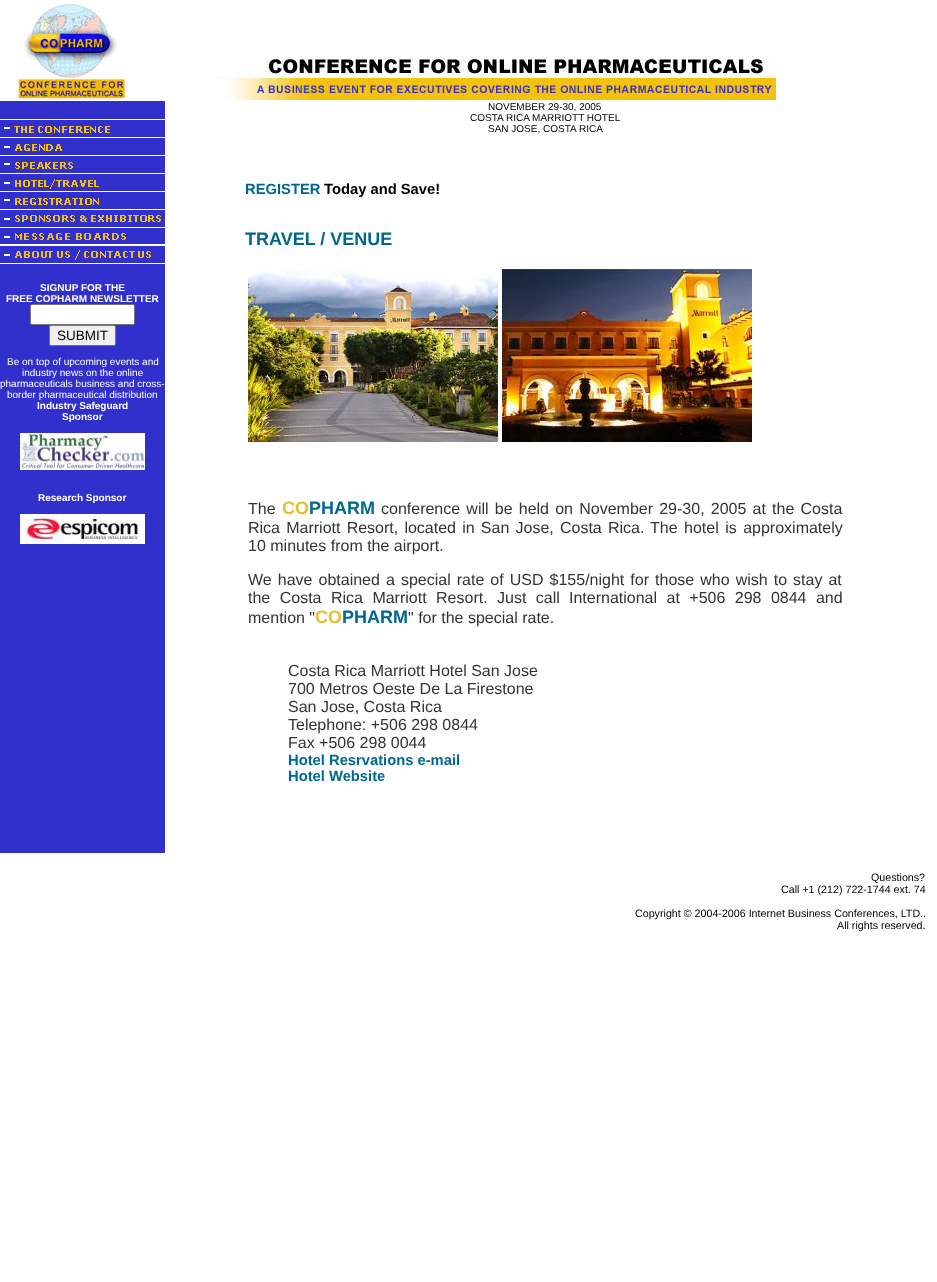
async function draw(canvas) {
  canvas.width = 937
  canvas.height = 1282
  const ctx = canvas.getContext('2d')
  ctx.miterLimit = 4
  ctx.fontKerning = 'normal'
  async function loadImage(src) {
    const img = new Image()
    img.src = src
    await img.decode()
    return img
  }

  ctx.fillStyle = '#fff'
  ctx.fillRect(0, 0, 937, 1282)
  ctx.drawImage(await loadImage('image0.png'), 16, 0, 112, 101)
  ctx.drawImage(await loadImage('image1.png'), 217, 59, 559, 42)
  ctx.fillStyle = '#3230cd'
  ctx.fillRect(0, 101, 165, 752)
  ctx.drawImage(await loadImage('image2.png'), 0, 119, 165, 14)
  ctx.drawImage(await loadImage('image3.png'), 0, 137, 165, 14)
  ctx.drawImage(await loadImage('image4.png'), 0, 155, 165, 14)
  ctx.drawImage(await loadImage('image5.png'), 0, 173, 165, 16)
  ctx.drawImage(await loadImage('image6.png'), 0, 191, 165, 14)
  ctx.drawImage(await loadImage('image7.png'), 0, 209, 165, 13)
  ctx.drawImage(await loadImage('image8.png'), 0, 227, 165, 18)
  ctx.drawImage(await loadImage('image9.png'), 0, 245, 165, 19)
  ctx.font = 'bold 10px Liberation Sans'
  ctx.fillStyle = '#fff'
  ctx.fillText('SIGNUP FOR THE', 40, 291)
  ctx.fillText('FREE COPHARM NEWSLETTER', 6, 302)
  ctx.beginPath()
  ctx.roundRect(30.5, 304.5, 104, 20, 1.5)
  ctx.fill()
  ctx.strokeStyle = '#767676'
  ctx.stroke()
  ctx.fillStyle = '#efefef'
  ctx.beginPath()
  ctx.roundRect(49.5, 325.5, 66, 20, 1.5)
  ctx.fill()
  ctx.stroke()
  ctx.font = '13.5px Liberation Sans'
  ctx.fillStyle = '#000'
  ctx.fillText('SUBMIT', 57, 340)
  ctx.font = '10px Liberation Sans'
  ctx.fillStyle = '#fff'
  ctx.fillText('Be on top of upcoming events and', 7, 365)
  ctx.fillText('industry news on the online', 22, 376)
  ctx.fillText('pharmaceuticals business and cross-', 0, 387)
  ctx.fillText('border pharmaceutical distribution', 7, 398)
  ctx.font = 'bold 10px Liberation Sans'
  ctx.fillText('Industry Safeguard', 37, 409)
  ctx.fillText('Sponsor', 62, 420)
  ctx.drawImage(await loadImage('image10.png'), 20, 433, 125, 37)
  ctx.fillText('Research Sponsor', 38, 501)
  ctx.drawImage(await loadImage('image11.png'), 20, 514, 125, 30)
  ctx.font = '10px Liberation Sans'
  ctx.fillStyle = '#000'
  ctx.fillText('NOVEMBER 29-30, 2005', 488, 110)
  ctx.fillText('COSTA RICA MARRIOTT HOTEL', 470, 121)
  ctx.fillText('SAN JOSE, COSTA RICA', 488, 132)
  ctx.font = 'bold 14.75px Liberation Sans'
  ctx.fillStyle = '#00678f'
  ctx.fillText('REGISTER', 245, 194)
  ctx.fillStyle = '#000'
  ctx.fillText('Today and Save!', 324, 194)
  ctx.font = 'bold 18px Liberation Sans'
  ctx.fillStyle = '#00678f'
  ctx.fillText('TRAVEL / VENUE', 245, 245)
  ctx.drawImage(await loadImage('image12.png'), 248, 269, 250, 173)
  ctx.drawImage(await loadImage('image13.png'), 502, 269, 250, 173)
  ctx.font = '16px Liberation Sans'
  ctx.fillStyle = '#333'
  ctx.fillText('The', 248, 514)
  ctx.font = 'bold 18px Liberation Sans'
  ctx.fillStyle = '#eabc2c'
  ctx.fillText('CO', 282, 514)
  ctx.fillStyle = '#00678f'
  ctx.fillText('PHARM', 309, 514)
  ctx.wordSpacing = '1.75px'
  ctx.font = '16px Liberation Sans'
  ctx.fillStyle = '#333'
  ctx.fillText('conference will be held on November 29-30, 2005 at the Costa', 381, 514)
  ctx.fillText('Rica Marriott Resort, located in San Jose, Costa Rica.', 248, 533)
  ctx.wordSpacing = '2px'
  ctx.fillText('The hotel is approximately', 650, 533)
  ctx.wordSpacing = '0px'
  ctx.fillText('10 minutes from the airport.', 248, 551)
  ctx.wordSpacing = '1.6px'
  ctx.fillText('We have obtained a special rate of USD $155/night for those who wish to stay at', 248, 585)
  ctx.wordSpacing = '5px'
  ctx.fillText('the Costa Rica Marriott Resort.', 248, 603)
  ctx.fillText('Just call', 497, 603)
  ctx.fillText('International at +506 298 0844 and', 569, 603)
  ctx.wordSpacing = '0px'
  ctx.fillText('mention "', 248, 623)
  ctx.font = 'bold 18px Liberation Sans'
  ctx.fillStyle = '#eabc2c'
  ctx.fillText('CO', 315, 623)
  ctx.fillStyle = '#00678f'
  ctx.fillText('PHARM', 342, 623)
  ctx.font = '16px Liberation Sans'
  ctx.fillStyle = '#333'
  ctx.fillText('" for the special rate.', 408, 623)
  ctx.fillText('Costa Rica Marriott Hotel San Jose', 288, 676)
  ctx.fillText('700 Metros Oeste De La Firestone', 288, 694)
  ctx.fillText('San Jose, Costa Rica', 288, 712)
  ctx.fillText('Telephone: +506 298 0844', 288, 730)
  ctx.fillText('Fax +506 298 0044', 288, 748)
  ctx.font = 'bold 14.75px Liberation Sans'
  ctx.fillStyle = '#00678f'
  ctx.fillText('Hotel Resrvations e-mail', 288, 765)
  ctx.fillText('Hotel Website', 288, 781)
  ctx.font = '10.7px Liberation Sans'
  ctx.fillStyle = '#000'
  ctx.fillText('Questions?', 871, 881)
  ctx.fillText('Call +1 (212) 722-1744 ext. 74', 781, 893)
  ctx.fillText('Copyright © 2004-2006 Internet Business Conferences, LTD..', 635, 917)
  ctx.fillText('All rights reserved.', 837, 929)
}

draw(document.querySelector('canvas'))
